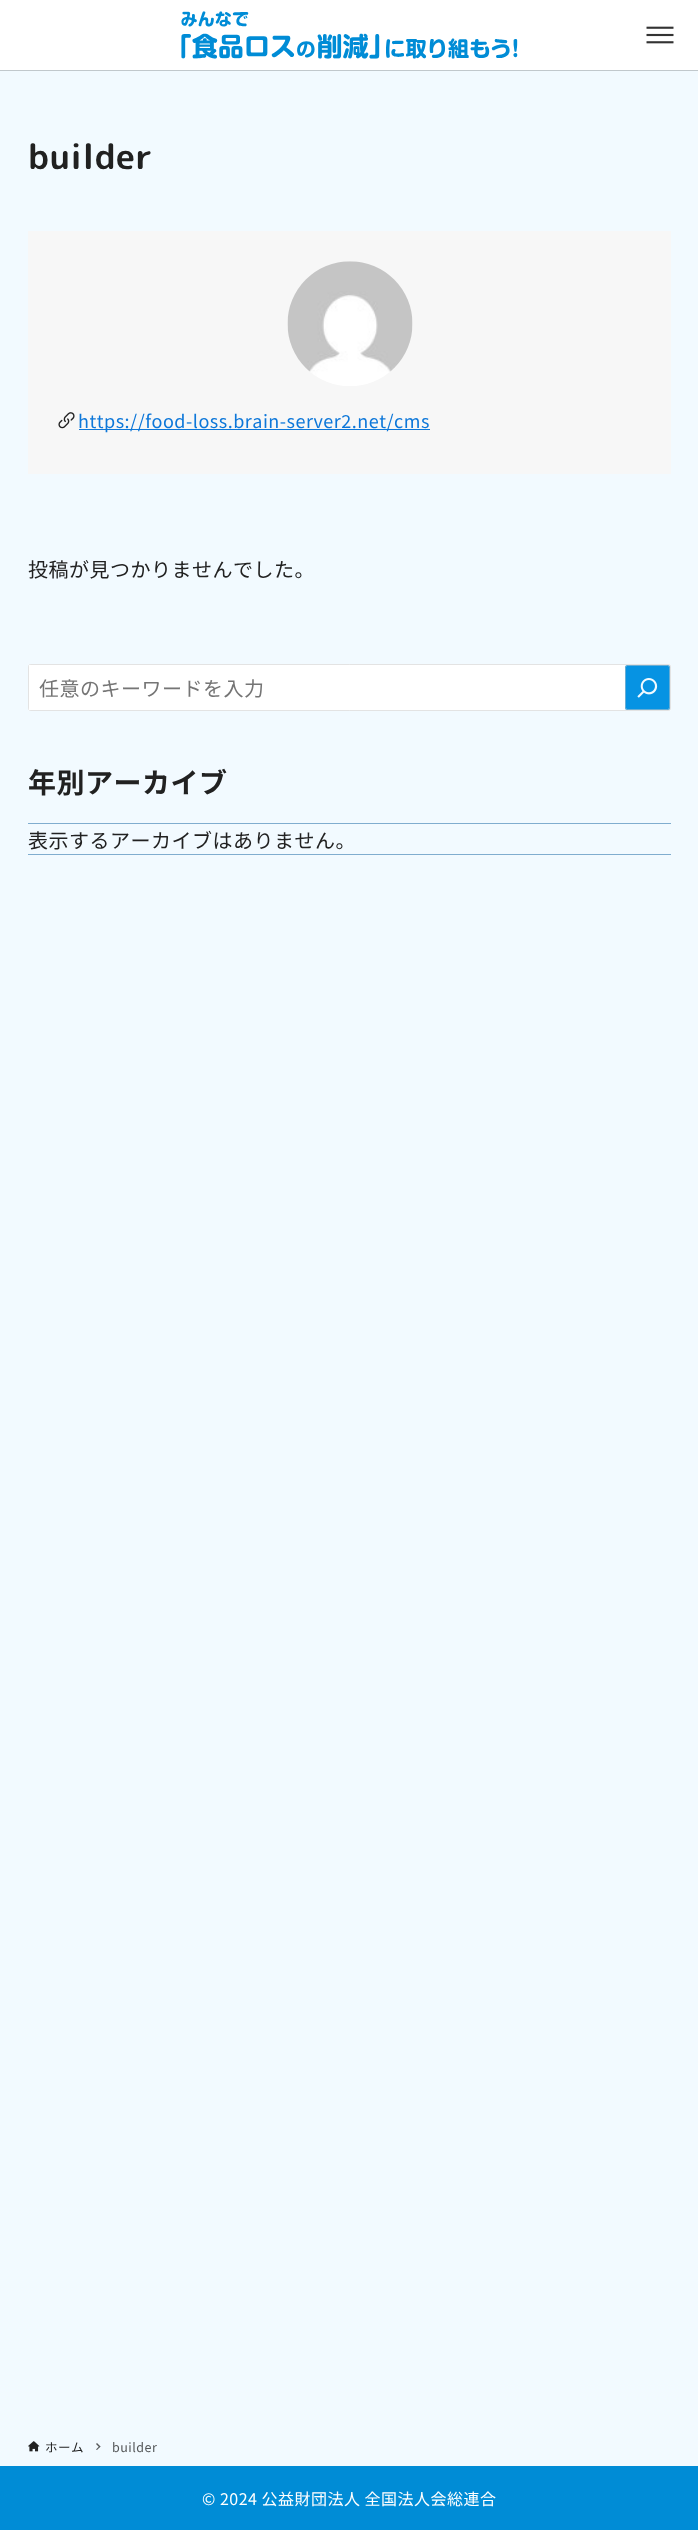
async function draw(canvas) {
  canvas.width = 698
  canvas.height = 2530
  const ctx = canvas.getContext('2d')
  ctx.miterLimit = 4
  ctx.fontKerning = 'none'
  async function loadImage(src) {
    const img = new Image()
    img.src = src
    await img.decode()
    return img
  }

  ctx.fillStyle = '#f2faff'
  ctx.fillRect(0, 0, 698, 2530)
  ctx.fillStyle = '#00000033'
  ctx.filter = 'blur(0.5px)'
  ctx.beginPath()
  ctx.rect(0, 1, 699, 70)
  ctx.fill()
  ctx.filter = 'none'
  ctx.fillStyle = '#fff'
  ctx.fillRect(0, 0, 698, 70)
  ctx.drawImage(await loadImage('image0.png'), 181, 11, 337, 48)
  ctx.drawImage(await loadImage('image1.png'), 646, 26, 28, 18)
  ctx.letterSpacing = '0.5px'
  ctx.font = 'bold 34.5px "Rounded Mplus 1c Bold"'
  ctx.fillStyle = '#212121'
  ctx.fillText('builder', 28, 169)
  ctx.fillStyle = '#f7f7f7'
  ctx.fillRect(28, 231, 643, 243)
  ctx.drawImage(await loadImage('image2.png'), 287, 261, 126, 125)
  ctx.drawImage(await loadImage('image3.png'), 58, 412, 17, 17)
  ctx.fillStyle = '#0d77d9'
  ctx.fillRect(79, 429, 351, 1)
  ctx.font = '18px Noto Sans JP'
  ctx.fillText('https://food-loss.brain-server2.net/cms', 78, 428)
  ctx.font = '20px Noto Sans JP'
  ctx.fillStyle = '#212121'
  ctx.fillText('投稿が見つかりませんでした。', 28, 577)
  ctx.fillStyle = '#fff'
  ctx.beginPath()
  ctx.roundRect(28, 664, 643, 47, 2.5)
  ctx.fill()
  ctx.beginPath()
  ctx.roundRect(28.5, 664.5, 642, 46, 2)
  ctx.strokeStyle = '#c8c8c880'
  ctx.stroke()
  ctx.fillRect(29, 665, 1, 45)
  ctx.fillStyle = '#757575'
  ctx.fillText('任意のキーワードを入力', 39, 696)
  ctx.fillStyle = '#0693e3'
  ctx.beginPath()
  ctx.roundRect(625, 665, 45, 45, 2.5)
  ctx.fill()
  ctx.beginPath()
  ctx.roundRect(625.5, 665.5, 44, 44, 2)
  ctx.stroke()
  ctx.drawImage(await loadImage('image4.png'), 637, 678, 21, 20)
  ctx.font = 'bold 28px Noto Sans JP'
  ctx.fillStyle = '#212121'
  ctx.fillText('年別アーカイブ', 28, 793)
  ctx.fillStyle = '#80adcf'
  ctx.fillRect(28, 823, 643, 1)
  ctx.fillRect(28, 854, 643, 1)
  ctx.font = '20px Noto Sans JP'
  ctx.fillStyle = '#212121'
  ctx.fillText('表示するアーカイブはありません。', 28, 848)
  ctx.drawImage(await loadImage('image5.png'), 28, 2441, 12, 11)
  ctx.font = '12.5px Noto Sans JP'
  ctx.fillText('ホーム', 45, 2452)
  ctx.fillStyle = '#555759'
  ctx.beginPath()
  ctx.moveTo(97, 2443)
  ctx.lineTo(100.5, 2446.5)
  ctx.lineTo(99.5, 2447.5)
  ctx.lineTo(96, 2444)
  ctx.closePath()
  ctx.fill()
  ctx.beginPath()
  ctx.moveTo(99.5, 2446)
  ctx.lineTo(100.5, 2446.5)
  ctx.lineTo(97, 2450)
  ctx.lineTo(96, 2449.5)
  ctx.closePath()
  ctx.fill()
  ctx.fillText('builder', 112, 2452)
  ctx.fillStyle = '#008cd6'
  ctx.fillRect(0, 2466, 698, 64)
  ctx.font = '16px Noto Sans JP'
  ctx.fillStyle = '#fff'
  ctx.fillText('© 2024 公益財団法人 全国法人会総連合', 202, 2505)
}

draw(document.querySelector('canvas'))
